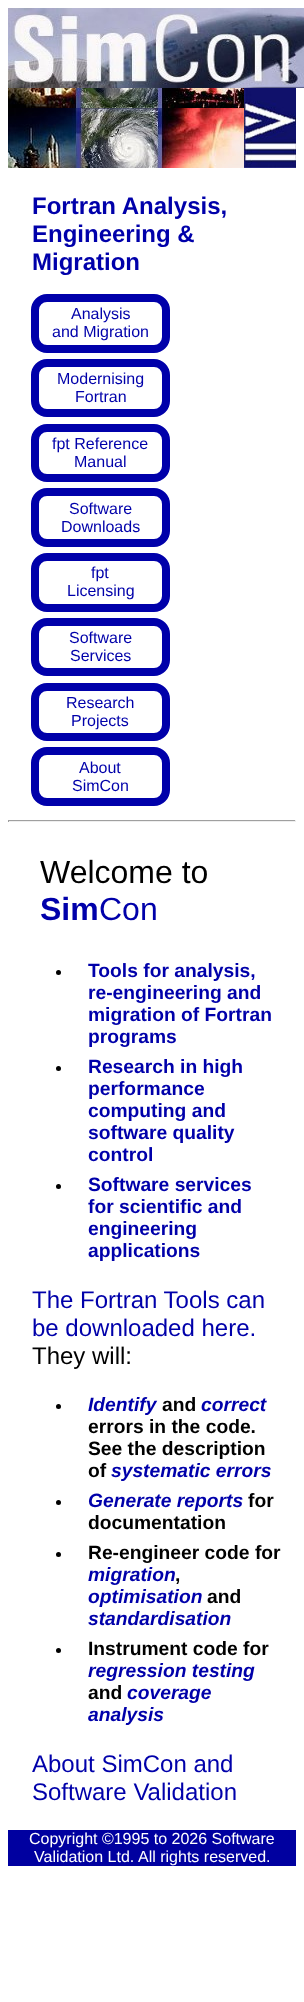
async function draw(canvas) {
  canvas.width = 304
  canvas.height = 2002
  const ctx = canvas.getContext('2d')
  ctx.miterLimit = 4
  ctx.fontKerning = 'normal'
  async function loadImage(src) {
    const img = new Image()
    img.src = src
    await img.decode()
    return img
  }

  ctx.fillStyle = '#fff'
  ctx.fillRect(0, 0, 304, 2002)
  ctx.drawImage(await loadImage('image0.png'), 8, 88, 236, 80)
  ctx.drawImage(await loadImage('image1.png'), 8, 8, 296, 80)
  ctx.drawImage(await loadImage('image2.png'), 244, 88, 52, 80)
  ctx.font = 'bold 24px Liberation Sans'
  ctx.fillStyle = '#00a'
  ctx.fillText('Fortran Analysis,', 32, 214)
  ctx.fillText('Engineering &', 32, 242)
  ctx.fillText('Migration', 32, 270)
  ctx.beginPath()
  ctx.roundRect(35, 298, 131, 51, 12)
  ctx.strokeStyle = '#00a'
  ctx.lineWidth = 8
  ctx.stroke()
  ctx.font = '16px Liberation Sans'
  ctx.fillText('Analysis', 71, 319)
  ctx.fillText('and Migration', 52, 337)
  ctx.beginPath()
  ctx.roundRect(35, 363, 131, 50, 12)
  ctx.stroke()
  ctx.fillText('Modernising', 57, 384)
  ctx.fillText('Fortran', 75, 402)
  ctx.beginPath()
  ctx.roundRect(35, 428, 131, 50, 12)
  ctx.stroke()
  ctx.fillText('fpt Reference', 52, 449)
  ctx.fillText('Manual', 74, 467)
  ctx.beginPath()
  ctx.roundRect(35, 492, 131, 51, 12)
  ctx.stroke()
  ctx.fillText('Software', 69, 514)
  ctx.fillText('Downloads', 61, 532)
  ctx.beginPath()
  ctx.roundRect(35, 557, 131, 51, 12)
  ctx.stroke()
  ctx.fillText('fpt', 91, 578)
  ctx.fillText('Licensing', 67, 596)
  ctx.beginPath()
  ctx.roundRect(35, 622, 131, 50, 12)
  ctx.stroke()
  ctx.fillText('Software', 69, 643)
  ctx.fillText('Services', 70, 661)
  ctx.beginPath()
  ctx.roundRect(35, 687, 131, 50, 12)
  ctx.stroke()
  ctx.fillText('Research', 66, 708)
  ctx.fillText('Projects', 71, 726)
  ctx.beginPath()
  ctx.roundRect(35, 751, 131, 51, 12)
  ctx.stroke()
  ctx.fillText('About', 79, 773)
  ctx.fillText('SimCon', 72, 791)
  ctx.fillStyle = '#9f9f9f'
  ctx.fillRect(8, 820, 288, 1)
  ctx.fillStyle = '#eee'
  ctx.fillRect(295, 820, 1, 2)
  ctx.fillRect(8, 821, 288, 1)
  ctx.fillStyle = '#9f9f9f'
  ctx.fillRect(8, 820, 1, 2)
  ctx.font = '32px Liberation Sans'
  ctx.fillStyle = '#000'
  ctx.fillText('Welcome to', 40, 883)
  ctx.font = 'bold 32px Liberation Sans'
  ctx.fillStyle = '#00a'
  ctx.fillText('Sim', 40, 920)
  ctx.font = '32px Liberation Sans'
  ctx.fillText('Con', 99, 920)
  ctx.fillStyle = '#000'
  ctx.beginPath()
  ctx.arc(58.5, 972.5, 2.5, 0, 2 * Math.PI)
  ctx.fill()
  ctx.font = 'bold 19.25px Liberation Sans'
  ctx.fillStyle = '#00a'
  ctx.fillText('Tools for analysis,', 88, 977)
  ctx.fillText('re-engineering and', 88, 999)
  ctx.fillText('migration of Fortran', 88, 1021)
  ctx.fillText('programs', 88, 1043)
  ctx.fillStyle = '#000'
  ctx.beginPath()
  ctx.arc(58.5, 1068.5, 2.5, 0, 2 * Math.PI)
  ctx.fill()
  ctx.fillStyle = '#00a'
  ctx.fillText('Research in high', 88, 1073)
  ctx.fillText('performance', 88, 1095)
  ctx.fillText('computing and', 88, 1117)
  ctx.fillText('software quality', 88, 1139)
  ctx.fillText('control', 88, 1161)
  ctx.fillStyle = '#000'
  ctx.beginPath()
  ctx.arc(58.5, 1186.5, 2.5, 0, 2 * Math.PI)
  ctx.fill()
  ctx.fillStyle = '#00a'
  ctx.fillText('Software services', 88, 1191)
  ctx.fillText('for scientific and', 88, 1213)
  ctx.fillText('engineering', 88, 1235)
  ctx.fillText('applications', 88, 1257)
  ctx.font = '24px Liberation Sans'
  ctx.fillText('The Fortran Tools can', 32, 1308)
  ctx.fillText('be downloaded here.', 32, 1336)
  ctx.fillStyle = '#000'
  ctx.fillText('They will:', 32, 1364)
  ctx.beginPath()
  ctx.arc(58.5, 1406.5, 2.5, 0, 2 * Math.PI)
  ctx.fill()
  ctx.font = 'italic bold 19.25px Liberation Sans'
  ctx.fillStyle = '#00a'
  ctx.fillText('Identify', 88, 1411)
  ctx.font = 'bold 19.25px Liberation Sans'
  ctx.fillStyle = '#000'
  ctx.fillText('and', 162, 1411)
  ctx.font = 'italic bold 19.25px Liberation Sans'
  ctx.fillStyle = '#00a'
  ctx.fillText('correct', 201, 1411)
  ctx.font = 'bold 19.25px Liberation Sans'
  ctx.fillStyle = '#000'
  ctx.fillText('errors in the code.', 88, 1433)
  ctx.fillText('See the description', 88, 1455)
  ctx.fillText('of', 88, 1477)
  ctx.font = 'italic bold 19.25px Liberation Sans'
  ctx.fillStyle = '#00a'
  ctx.fillText('systematic errors', 111, 1477)
  ctx.fillStyle = '#000'
  ctx.beginPath()
  ctx.arc(58.5, 1502.5, 2.5, 0, 2 * Math.PI)
  ctx.fill()
  ctx.fillStyle = '#00a'
  ctx.fillText('Generate reports', 88, 1507)
  ctx.font = 'bold 19.25px Liberation Sans'
  ctx.fillStyle = '#000'
  ctx.fillText('for', 248, 1507)
  ctx.fillText('documentation', 88, 1529)
  ctx.beginPath()
  ctx.arc(58.5, 1554.5, 2.5, 0, 2 * Math.PI)
  ctx.fill()
  ctx.fillText('Re-engineer code for', 88, 1559)
  ctx.font = 'italic bold 19.25px Liberation Sans'
  ctx.fillStyle = '#00a'
  ctx.fillText('migration', 88, 1581)
  ctx.font = 'bold 19.25px Liberation Sans'
  ctx.fillStyle = '#000'
  ctx.fillText(',', 175, 1581)
  ctx.font = 'italic bold 19.25px Liberation Sans'
  ctx.fillStyle = '#00a'
  ctx.fillText('optimisation', 88, 1603)
  ctx.font = 'bold 19.25px Liberation Sans'
  ctx.fillStyle = '#000'
  ctx.fillText('and', 207, 1603)
  ctx.font = 'italic bold 19.25px Liberation Sans'
  ctx.fillStyle = '#00a'
  ctx.fillText('standardisation', 88, 1625)
  ctx.fillStyle = '#000'
  ctx.beginPath()
  ctx.arc(58.5, 1650.5, 2.5, 0, 2 * Math.PI)
  ctx.fill()
  ctx.font = 'bold 19.25px Liberation Sans'
  ctx.fillText('Instrument code for', 88, 1655)
  ctx.font = 'italic bold 19.25px Liberation Sans'
  ctx.fillStyle = '#00a'
  ctx.fillText('regression testing', 88, 1677)
  ctx.font = 'bold 19.25px Liberation Sans'
  ctx.fillStyle = '#000'
  ctx.fillText('and', 88, 1699)
  ctx.font = 'italic bold 19.25px Liberation Sans'
  ctx.fillStyle = '#00a'
  ctx.fillText('coverage', 127, 1699)
  ctx.fillText('analysis', 88, 1721)
  ctx.font = '24px Liberation Sans'
  ctx.fillText('About SimCon and', 32, 1772)
  ctx.fillText('Software Validation', 32, 1800)
  ctx.fillStyle = '#0000a0'
  ctx.fillRect(8, 1830, 288, 36)
  ctx.font = '16px Liberation Sans'
  ctx.fillStyle = '#fff'
  ctx.fillText('Copyright ©1995 to 2026 Software', 29, 1844)
  ctx.fillText('Validation Ltd.', 34, 1862)
  ctx.fillText('All rights reserved.', 138, 1862)
}

draw(document.querySelector('canvas'))
